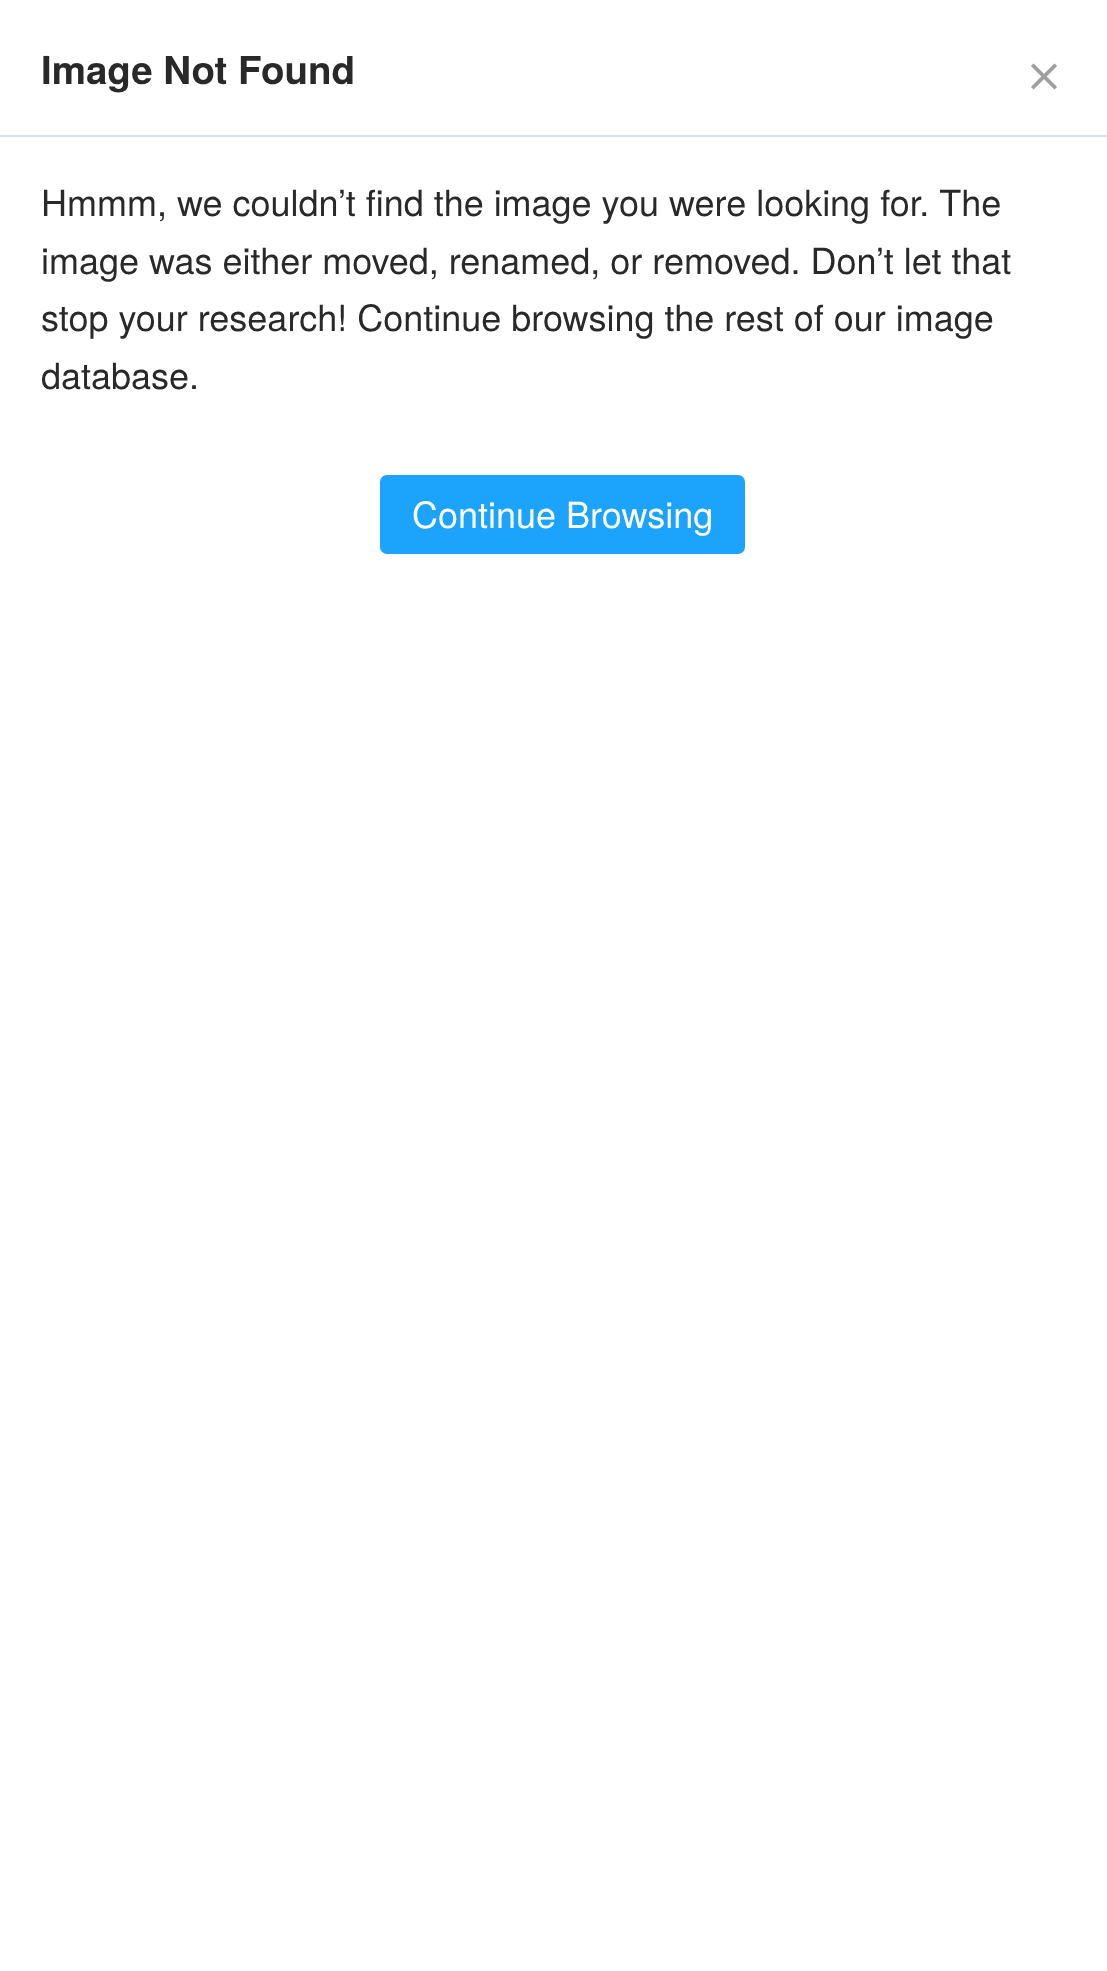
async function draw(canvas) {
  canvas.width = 1107
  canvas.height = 1971
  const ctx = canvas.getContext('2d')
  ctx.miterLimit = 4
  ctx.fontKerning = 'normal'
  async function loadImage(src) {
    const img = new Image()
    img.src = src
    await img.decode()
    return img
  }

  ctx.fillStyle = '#fff'
  ctx.fillRect(0, 0, 1107, 1971)
  ctx.fillStyle = '#dae2e7'
  ctx.fillRect(0, 135, 1107, 2)
  ctx.font = 'bold 38.5px TeX Gyre Heros'
  ctx.fillStyle = '#292929'
  ctx.fillText('Image Not Found', 41, 84)
  ctx.drawImage(await loadImage('image0.png'), 1031, 63, 26, 27)
  ctx.font = '36px TeX Gyre Heros'
  ctx.fillText('Hmmm, we couldn’t find the image you were looking for. The', 41, 216)
  ctx.fillText('image was either moved, renamed, or removed. Don’t let that', 41, 274)
  ctx.fillText('stop your research! Continue browsing the rest of our image', 41, 331)
  ctx.fillText('database.', 41, 389)
  ctx.fillStyle = '#1ca3fc'
  ctx.beginPath()
  ctx.roundRect(380, 475, 365, 79, 7)
  ctx.fill()
  ctx.fillStyle = '#fff'
  ctx.fillText('Continue Browsing', 412, 528)
}

draw(document.querySelector('canvas'))
